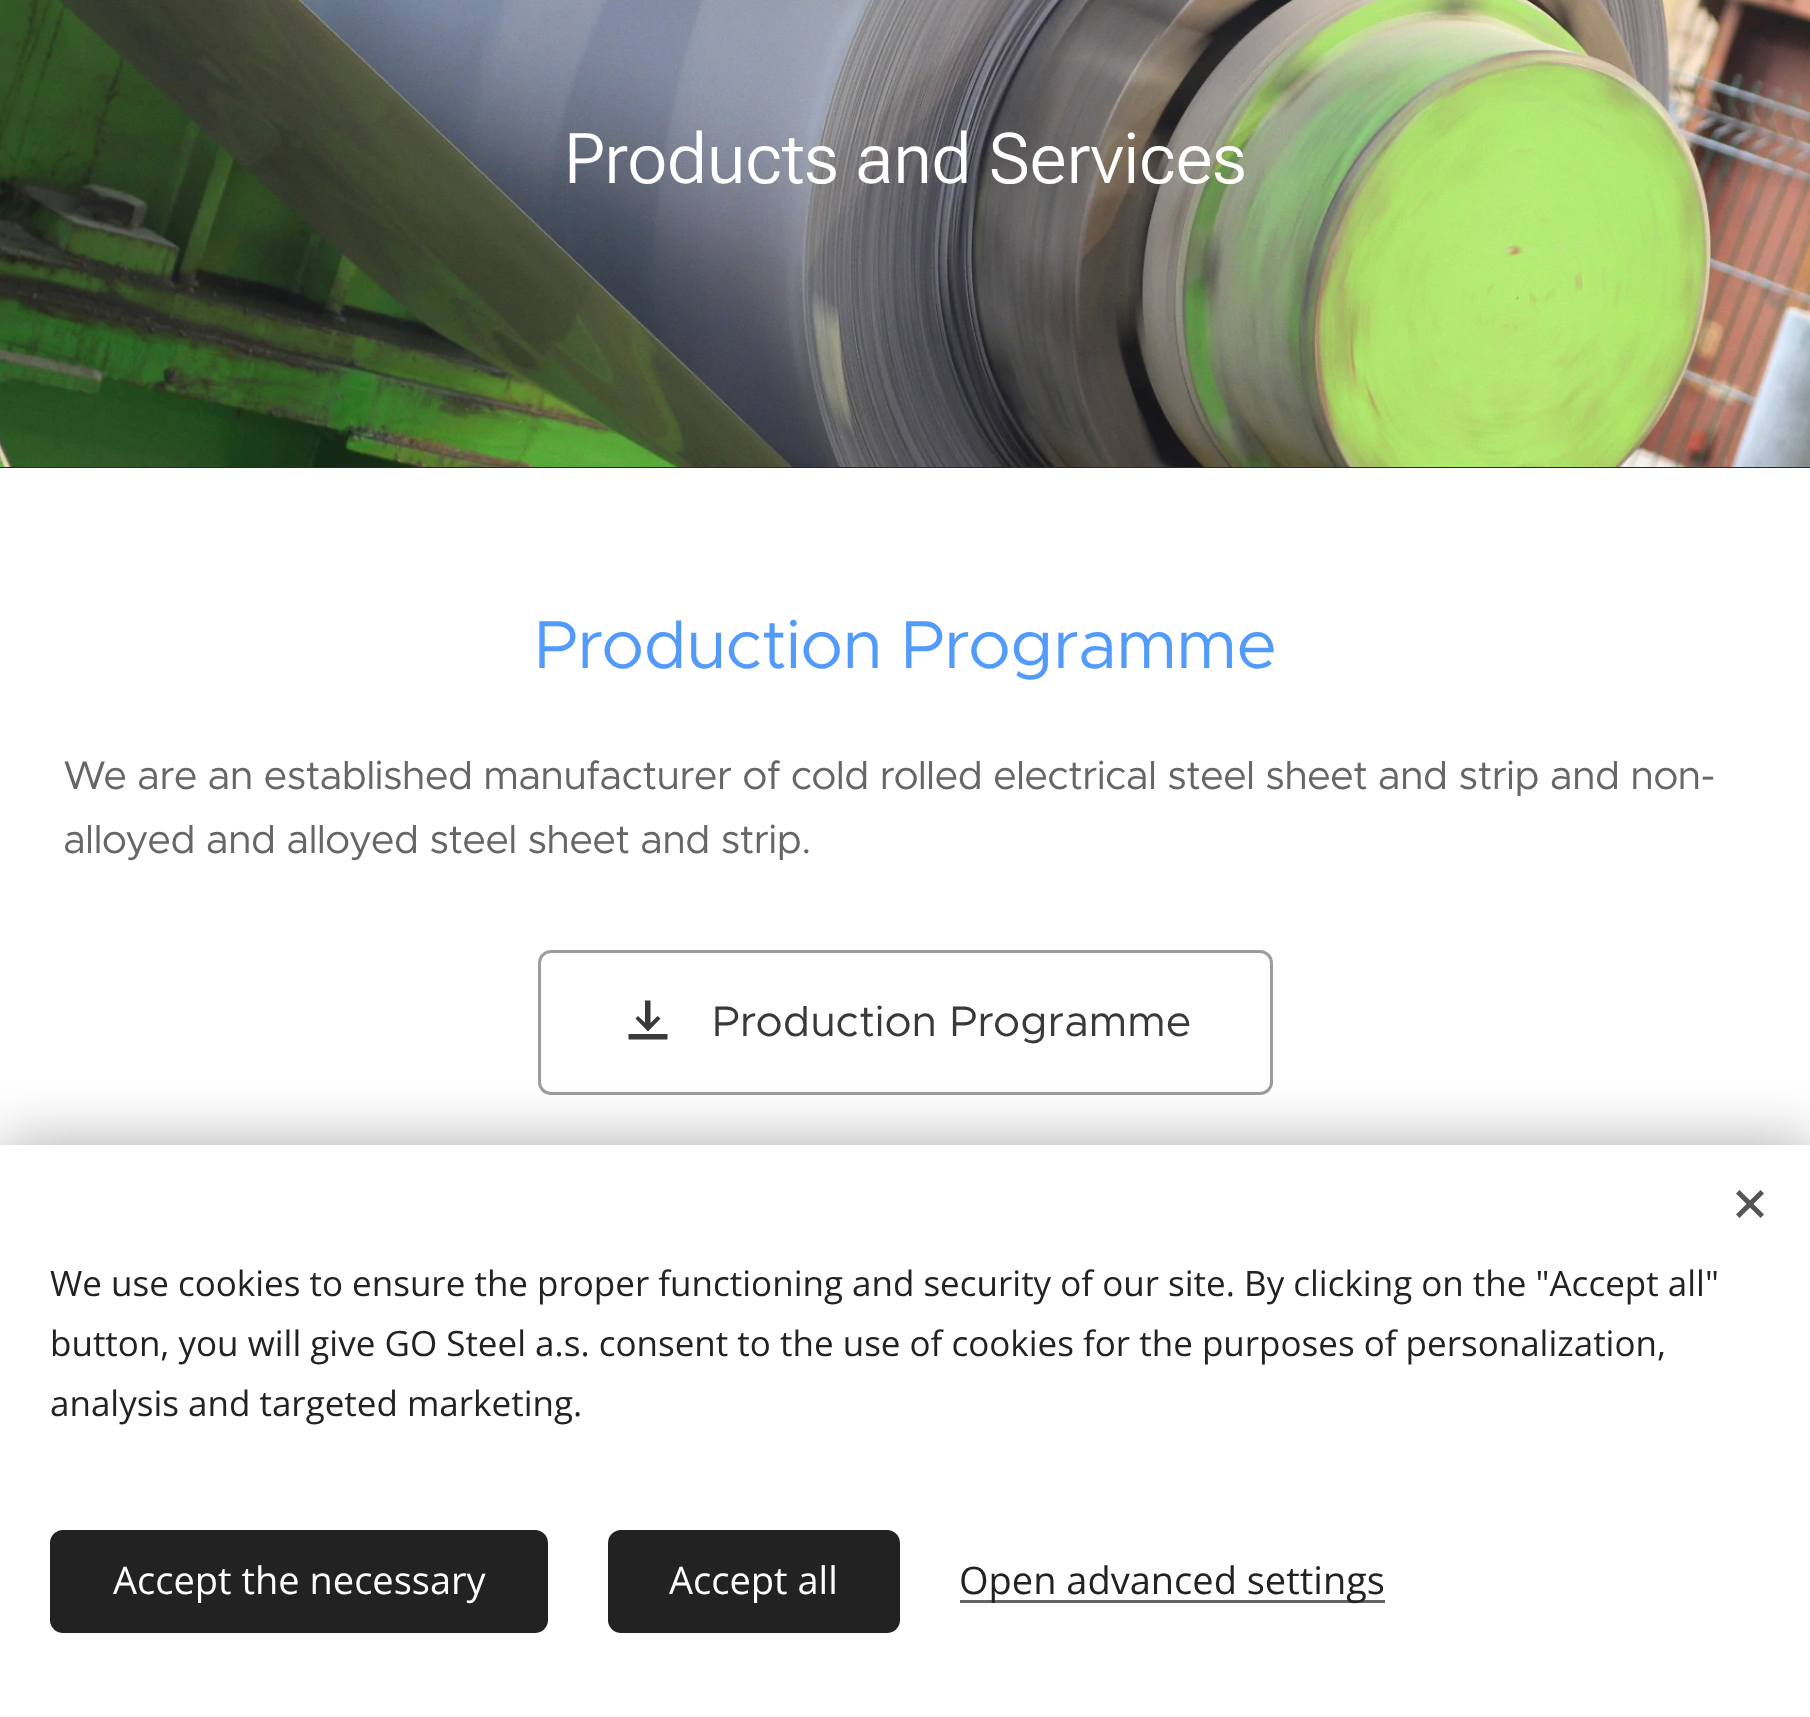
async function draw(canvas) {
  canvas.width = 1810
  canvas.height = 1717
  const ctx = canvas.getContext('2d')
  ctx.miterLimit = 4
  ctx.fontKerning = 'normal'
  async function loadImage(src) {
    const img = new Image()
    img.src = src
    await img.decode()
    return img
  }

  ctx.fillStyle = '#fff'
  ctx.fillRect(0, 0, 1810, 1717)
  ctx.fillStyle = '#272727'
  ctx.fillRect(0, 467, 1810, 1)
  ctx.drawImage(await loadImage('image0.png'), 0, 0, 1810, 467)
  ctx.font = '300 70px Roboto Flex'
  ctx.fillStyle = '#fff'
  ctx.fillText('Products and Services', 564, 183)
  ctx.letterSpacing = '-0.8px'
  ctx.font = '68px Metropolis'
  ctx.fillStyle = '#529bfa'
  ctx.fillText('Production Programme', 534, 668)
  ctx.font = '40px Metropolis'
  ctx.fillStyle = '#666'
  ctx.fillText('We are an established manufacturer of cold rolled electrical steel sheet and strip and non-', 63, 789)
  ctx.fillText('alloyed and alloyed steel sheet and strip.', 63, 853)
  ctx.beginPath()
  ctx.roundRect(539.5, 951.5, 732, 142, 11.5)
  ctx.strokeStyle = '#9d9d9d'
  ctx.lineWidth = 3
  ctx.stroke()
  ctx.fillStyle = '#393939'
  ctx.beginPath()
  ctx.moveTo(648, 1031.5)
  ctx.lineTo(635.5, 1018.5)
  ctx.lineTo(638, 1016)
  ctx.lineTo(648, 1025.5)
  ctx.lineTo(657.5, 1016)
  ctx.lineTo(660.5, 1018.5)
  ctx.closePath()
  ctx.moveTo(645, 1000.5)
  ctx.lineTo(650.5, 1000.5)
  ctx.lineTo(650.5, 1025.5)
  ctx.lineTo(645, 1025.5)
  ctx.closePath()
  ctx.moveTo(628.5, 1034)
  ctx.lineTo(667.5, 1034)
  ctx.lineTo(667.5, 1039.5)
  ctx.lineTo(628.5, 1039.5)
  ctx.closePath()
  ctx.fill()
  ctx.letterSpacing = '0px'
  ctx.font = '43px Metropolis'
  ctx.fillText('Production Programme', 712, 1036)
  ctx.fillStyle = '#00000054'
  ctx.filter = 'blur(31px)'
  ctx.beginPath()
  ctx.rect(0, 1145, 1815, 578)
  ctx.fill()
  ctx.filter = 'none'
  ctx.fillStyle = '#fff'
  ctx.fillRect(0, 1145, 1810, 572)
  ctx.fillStyle = '#555'
  ctx.beginPath()
  ctx.moveTo(1736, 1214.5)
  ctx.lineTo(1760.5, 1190)
  ctx.lineTo(1764, 1193.5)
  ctx.lineTo(1739.5, 1218)
  ctx.closePath()
  ctx.fill()
  ctx.beginPath()
  ctx.moveTo(1739.5, 1190)
  ctx.lineTo(1764, 1214.5)
  ctx.lineTo(1760.5, 1218)
  ctx.lineTo(1736, 1193.5)
  ctx.closePath()
  ctx.fill()
  ctx.font = '35px Open Sans'
  ctx.fillStyle = '#222'
  ctx.fillText('We use cookies to ensure the proper functioning and security of our site. By clicking on the "Accept all"', 50, 1296)
  ctx.fillText('button, you will give GO Steel a.s. consent to the use of cookies for the purposes of personalization,', 50, 1356)
  ctx.fillText('analysis and targeted marketing.', 50, 1416)
  ctx.beginPath()
  ctx.roundRect(50, 1530, 498, 103, 13)
  ctx.fill()
  ctx.font = '38px Open Sans'
  ctx.fillStyle = '#fff'
  ctx.fillText('Accept the necessary', 113, 1594)
  ctx.fillStyle = '#222'
  ctx.beginPath()
  ctx.roundRect(608, 1530, 292, 103, 13)
  ctx.fill()
  ctx.fillStyle = '#fff'
  ctx.fillText('Accept all', 669, 1594)
  ctx.fillStyle = '#646464'
  ctx.fillRect(960, 1600, 425, 3)
  ctx.fillStyle = '#222'
  ctx.fillText('Open advanced settings', 959, 1594)
}

draw(document.querySelector('canvas'))
